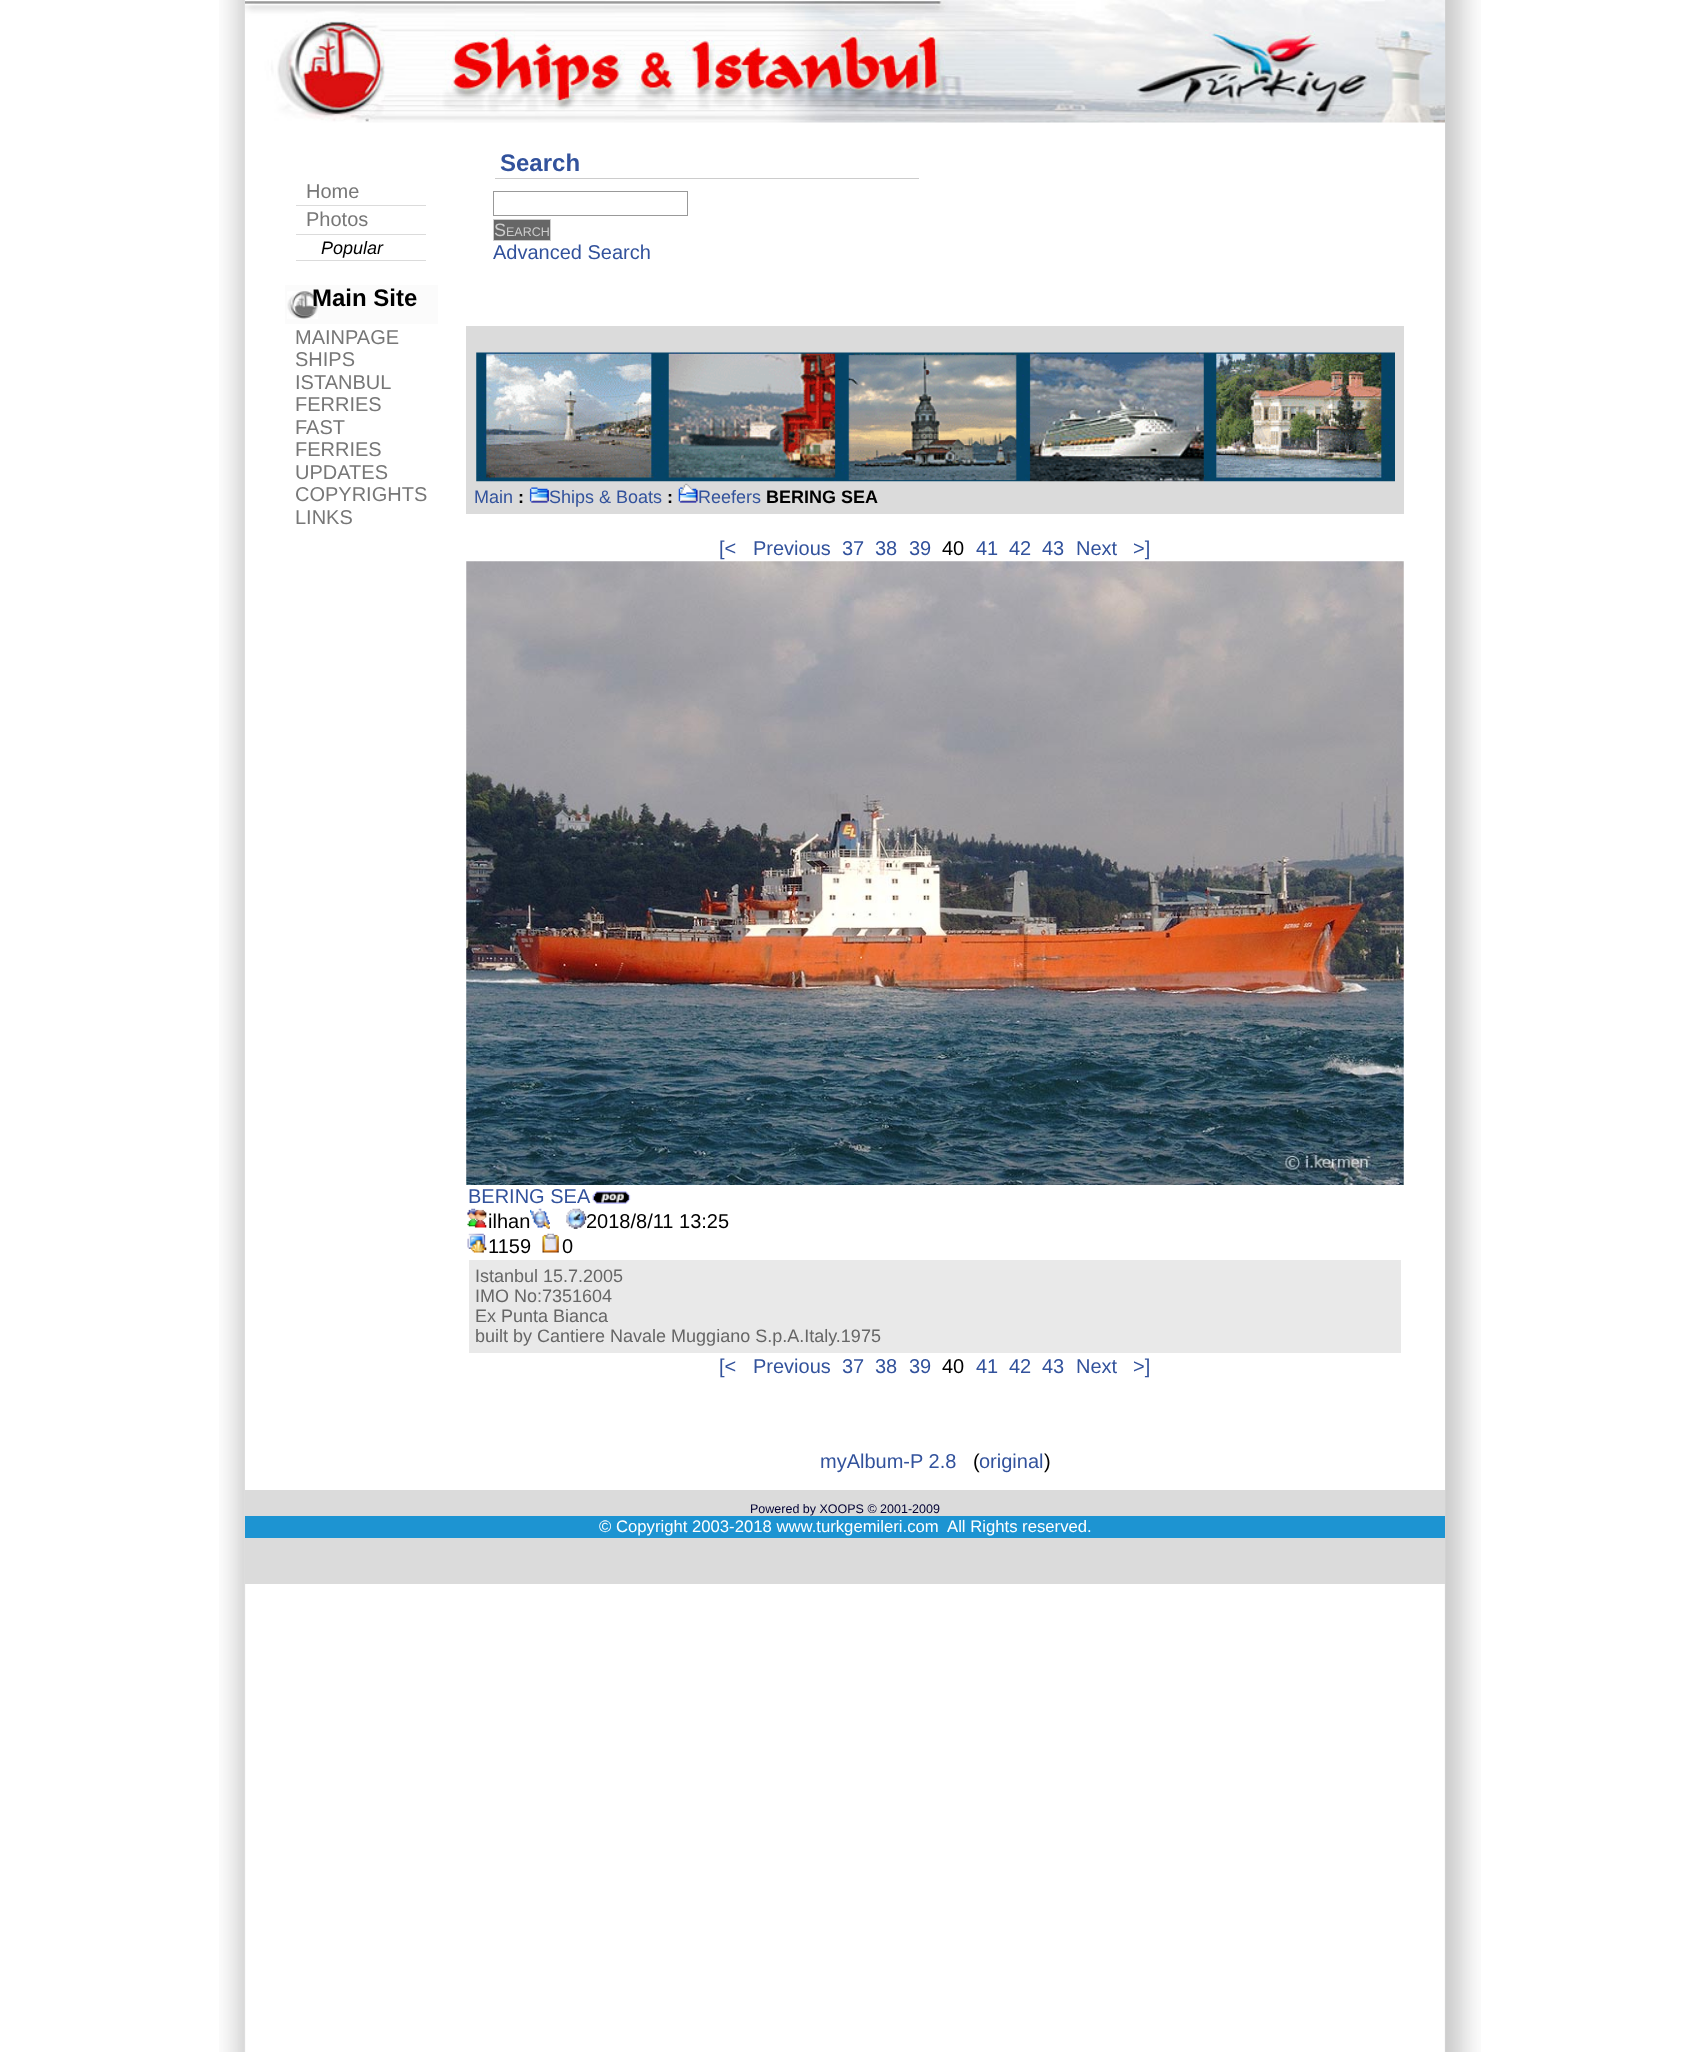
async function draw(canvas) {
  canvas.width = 1690
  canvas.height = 2052
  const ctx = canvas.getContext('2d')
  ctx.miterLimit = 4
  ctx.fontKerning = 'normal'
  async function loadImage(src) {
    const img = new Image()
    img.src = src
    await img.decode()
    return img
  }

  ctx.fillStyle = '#fff'
  ctx.fillRect(0, 0, 1690, 2052)
  ctx.drawImage(await loadImage('image0.png'), 219, 1584, 1262, 468)
  ctx.drawImage(await loadImage('image1.png'), 219, 0, 1262, 1584)
  ctx.drawImage(await loadImage('image2.png'), 245, 0, 1200, 123)
  ctx.fillRect(245, 123, 1200, 1367)
  ctx.fillStyle = '#dbdbdb'
  ctx.fillRect(296, 205, 130, 1)
  ctx.font = '20px Liberation Sans'
  ctx.fillStyle = '#777'
  ctx.fillText('Home', 306, 198)
  ctx.fillStyle = '#dbdbdb'
  ctx.fillRect(296, 234, 130, 1)
  ctx.fillStyle = '#777'
  ctx.fillText('Photos', 306, 226)
  ctx.fillStyle = '#dbdbdb'
  ctx.fillRect(296, 260, 130, 1)
  ctx.font = 'italic 18px Liberation Sans'
  ctx.fillStyle = '#000'
  ctx.fillText('Popular', 321, 254)
  ctx.fillStyle = '#fbfbfb'
  ctx.fillRect(285, 285, 153, 39)
  ctx.drawImage(await loadImage('image3.png'), 287, 291, 31, 28)
  ctx.font = 'bold 24px Liberation Sans'
  ctx.fillStyle = '#000'
  ctx.fillText('Main Site', 312, 306)
  ctx.font = '20px Liberation Sans'
  ctx.fillStyle = '#777'
  ctx.fillText('MAINPAGE', 295, 344)
  ctx.fillText('SHIPS', 295, 366)
  ctx.fillText('ISTANBUL', 295, 389)
  ctx.fillText('FERRIES', 295, 411)
  ctx.fillText('FAST', 295, 434)
  ctx.fillText('FERRIES', 295, 456)
  ctx.fillText('UPDATES', 295, 479)
  ctx.fillText('COPYRIGHTS', 295, 501)
  ctx.fillText('LINKS', 295, 524)
  ctx.fillStyle = '#ccc'
  ctx.fillRect(495, 178, 424, 1)
  ctx.font = 'bold 24px Liberation Sans'
  ctx.fillStyle = '#32529c'
  ctx.fillText('Search', 500, 171)
  ctx.strokeStyle = '#999'
  ctx.strokeRect(493.5, 191.5, 194, 24)
  ctx.fillStyle = '#666'
  ctx.beginPath()
  ctx.rect(493.5, 219.5, 57, 21)
  ctx.fill()
  ctx.strokeStyle = '#ccc'
  ctx.stroke()
  ctx.font = '18px Liberation Sans'
  ctx.fillStyle = '#ccc'
  ctx.fillText('S', 494, 236)
  ctx.font = '12.5px Liberation Sans'
  ctx.fillText('EARCH', 506, 236)
  ctx.font = '20px Liberation Sans'
  ctx.fillStyle = '#32529c'
  ctx.fillText('Advanced Search', 493, 259)
  ctx.fillStyle = '#dbdbdb'
  ctx.fillRect(466, 326, 938, 188)
  ctx.drawImage(await loadImage('image4.png'), 476, 352, 919, 130)
  ctx.font = '18px Liberation Sans'
  ctx.fillStyle = '#32529c'
  ctx.fillText('Main', 474, 503)
  ctx.font = 'bold 18px Liberation Sans'
  ctx.fillStyle = '#000'
  ctx.fillText(':', 518, 503)
  ctx.drawImage(await loadImage('image5.png'), 529, 487, 20, 16)
  ctx.font = '18px Liberation Sans'
  ctx.fillStyle = '#32529c'
  ctx.fillText('Ships & Boats', 549, 503)
  ctx.font = 'bold 18px Liberation Sans'
  ctx.fillStyle = '#000'
  ctx.fillText(':', 667, 503)
  ctx.drawImage(await loadImage('image6.png'), 678, 483, 20, 20)
  ctx.font = '18px Liberation Sans'
  ctx.fillStyle = '#32529c'
  ctx.fillText('Reefers', 698, 503)
  ctx.font = 'bold 18px Liberation Sans'
  ctx.fillStyle = '#000'
  ctx.fillText('BERING SEA', 766, 503)
  ctx.font = '20px Liberation Sans'
  ctx.fillStyle = '#32529c'
  ctx.fillText('[<', 719, 555)
  ctx.fillText('Previous', 753, 555)
  ctx.fillText('37', 842, 555)
  ctx.fillText('38', 875, 555)
  ctx.fillText('39', 909, 555)
  ctx.fillStyle = '#000'
  ctx.fillText('40', 942, 555)
  ctx.fillStyle = '#32529c'
  ctx.fillText('41', 976, 555)
  ctx.fillText('42', 1009, 555)
  ctx.fillText('43', 1042, 555)
  ctx.fillText('Next', 1076, 555)
  ctx.fillText('>]', 1133, 555)
  ctx.drawImage(await loadImage('image7.png'), 466, 561, 938, 624)
  ctx.fillText('BERING SEA', 468, 1203)
  ctx.drawImage(await loadImage('image8.png'), 592, 1191, 39, 13)
  ctx.drawImage(await loadImage('image9.png'), 467, 1208, 20, 20)
  ctx.fillStyle = '#000'
  ctx.fillText('ilhan', 488, 1228)
  ctx.drawImage(await loadImage('image10.png'), 530, 1208, 20, 21)
  ctx.drawImage(await loadImage('image11.png'), 566, 1208, 21, 21)
  ctx.fillText('2018/8/11 13:25', 586, 1228)
  ctx.drawImage(await loadImage('image12.png'), 467, 1233, 20, 20)
  ctx.fillText('1159', 488, 1253)
  ctx.drawImage(await loadImage('image13.png'), 542, 1233, 17, 20)
  ctx.fillText('0', 562, 1253)
  ctx.fillStyle = '#e9e9e9'
  ctx.fillRect(469, 1260, 932, 93)
  ctx.font = '18px Liberation Sans'
  ctx.fillStyle = '#666'
  ctx.fillText('Istanbul 15.7.2005', 475, 1282)
  ctx.fillText('IMO No:7351604', 475, 1302)
  ctx.fillText('Ex Punta Bianca', 475, 1322)
  ctx.fillText('built by Cantiere Navale Muggiano S.p.A.Italy.1975', 475, 1342)
  ctx.font = '20px Liberation Sans'
  ctx.fillStyle = '#32529c'
  ctx.fillText('[<', 719, 1373)
  ctx.fillText('Previous', 753, 1373)
  ctx.fillText('37', 842, 1373)
  ctx.fillText('38', 875, 1373)
  ctx.fillText('39', 909, 1373)
  ctx.fillStyle = '#000'
  ctx.fillText('40', 942, 1373)
  ctx.fillStyle = '#32529c'
  ctx.fillText('41', 976, 1373)
  ctx.fillText('42', 1009, 1373)
  ctx.fillText('43', 1042, 1373)
  ctx.fillText('Next', 1076, 1373)
  ctx.fillText('>]', 1133, 1373)
  ctx.fillText('myAlbum-P 2.8', 820, 1468)
  ctx.fillStyle = '#000'
  ctx.fillText('(', 973, 1468)
  ctx.fillStyle = '#32529c'
  ctx.fillText('original', 979, 1468)
  ctx.fillStyle = '#000'
  ctx.fillText(')', 1044, 1468)
  ctx.fillStyle = '#dbdbdb'
  ctx.fillRect(245, 1490, 1200, 94)
  ctx.font = '12.5px Liberation Sans'
  ctx.fillStyle = '#003'
  ctx.fillText('Powered by XOOPS © 2001-2009', 750, 1513)
  ctx.fillStyle = '#1d94d2'
  ctx.fillRect(245, 1516, 1200, 22)
  ctx.font = '16.7px Liberation Sans'
  ctx.fillStyle = '#fff'
  ctx.fillText('© Copyright 2003-2018 www.turkgemileri.com', 599, 1532)
  ctx.fillText('All Rights reserved.', 947, 1532)
}

draw(document.querySelector('canvas'))
